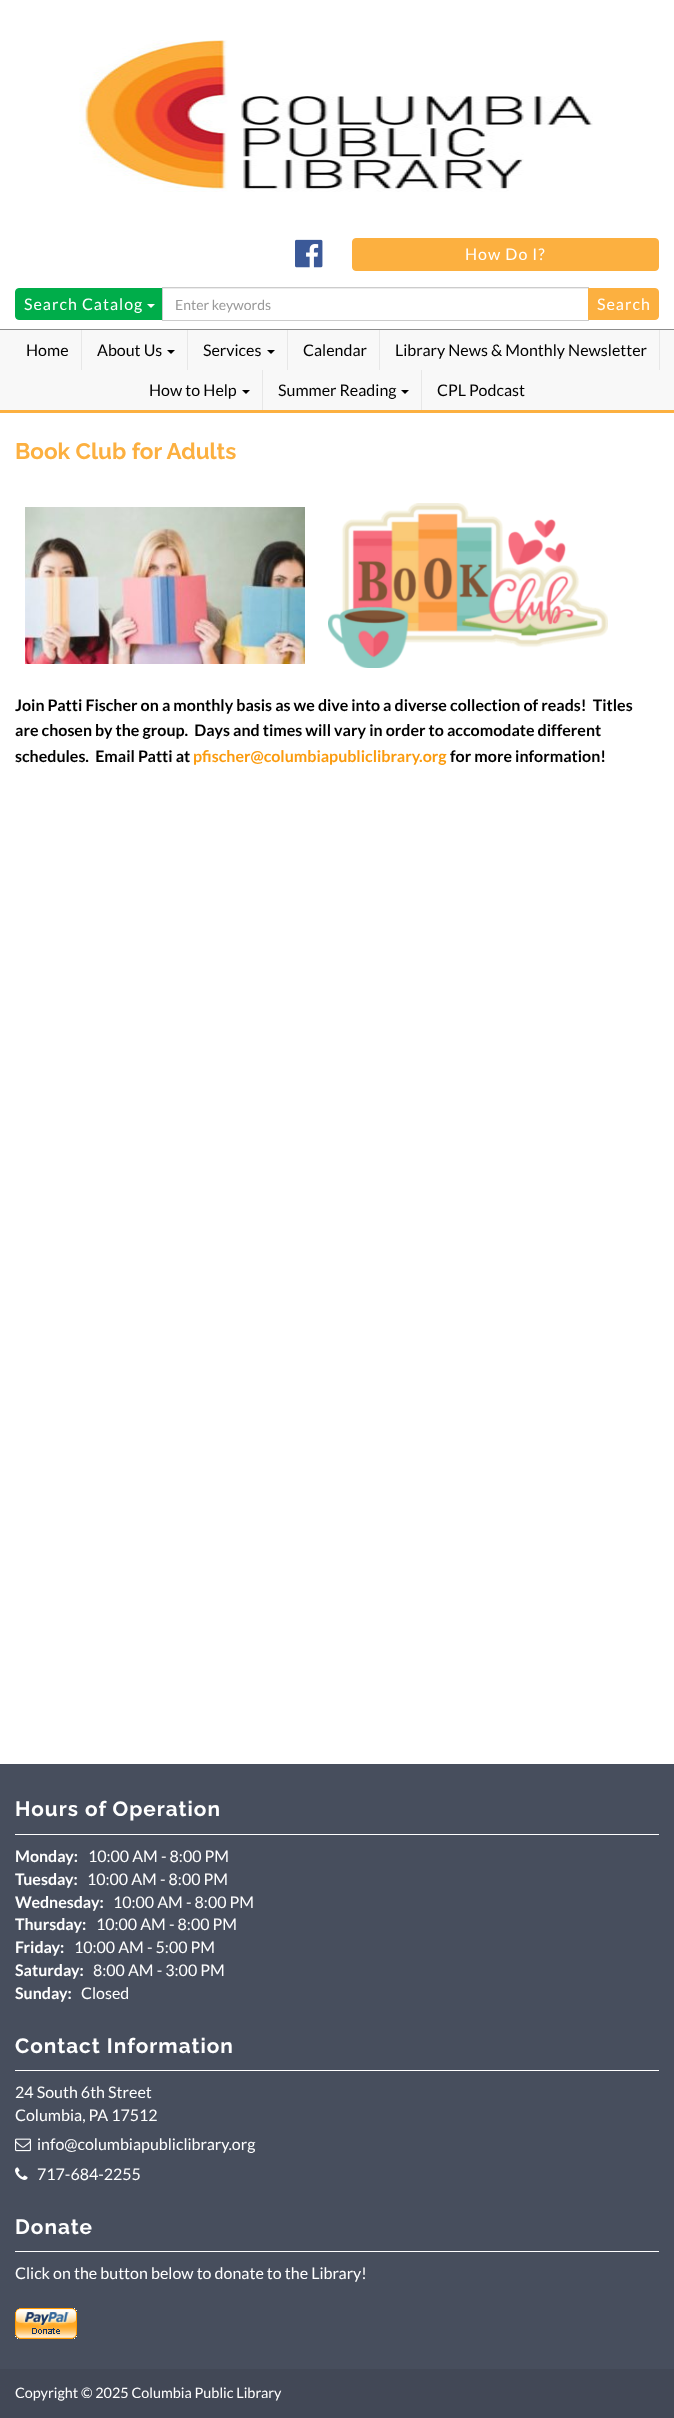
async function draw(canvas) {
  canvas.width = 674
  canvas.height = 2418
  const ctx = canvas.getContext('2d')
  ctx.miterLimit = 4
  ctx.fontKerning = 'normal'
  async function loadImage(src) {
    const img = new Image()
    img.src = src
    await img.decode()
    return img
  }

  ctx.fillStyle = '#fff'
  ctx.fillRect(0, 0, 674, 2418)
  ctx.drawImage(await loadImage('image0.png'), 79, 40, 514, 152)
  ctx.drawImage(await loadImage('image1.png'), 295, 239, 28, 29)
  ctx.fillStyle = '#fcb040'
  ctx.beginPath()
  ctx.roundRect(352.5, 238.5, 306, 32, 3.5)
  ctx.fill()
  ctx.strokeStyle = '#fcb040'
  ctx.stroke()
  ctx.letterSpacing = '1px'
  ctx.font = '16px Lato'
  ctx.fillStyle = '#fff'
  ctx.fillText('How Do I?', 465, 260)
  ctx.fillStyle = '#00ad4a'
  ctx.beginPath()
  ctx.roundRect(15.5, 288.5, 147, 31, [3.5, 0, 0, 3.5])
  ctx.fill()
  ctx.strokeStyle = '#00ad4a'
  ctx.stroke()
  ctx.fillStyle = '#fff'
  ctx.fillText('Search Catalog', 24, 310)
  ctx.beginPath()
  ctx.moveTo(147, 304)
  ctx.lineTo(155, 304)
  ctx.lineTo(151, 308)
  ctx.closePath()
  ctx.fill()
  ctx.fillStyle = '#ececec'
  ctx.fillRect(163, 288, 425, 1)
  ctx.strokeStyle = '#ccc'
  ctx.strokeRect(162.5, 287.5, 426, 33)
  ctx.letterSpacing = '0px'
  ctx.font = '14px Lato'
  ctx.fillStyle = '#999'
  ctx.fillText('Enter keywords', 175, 310)
  ctx.fillStyle = '#fcb040'
  ctx.beginPath()
  ctx.roundRect(588.5, 288.5, 70, 31, [0, 3.5, 3.5, 0])
  ctx.fill()
  ctx.strokeStyle = '#fcb040'
  ctx.stroke()
  ctx.letterSpacing = '1px'
  ctx.font = '16px Lato'
  ctx.fillStyle = '#fff'
  ctx.fillText('Search', 597, 310)
  ctx.fillStyle = '#f8f8f8'
  ctx.fillRect(0, 330, 674, 80)
  ctx.fillStyle = '#8c8c8c'
  ctx.fillRect(0, 329, 674, 1)
  ctx.fillStyle = '#fcb040'
  ctx.fillRect(0, 410, 674, 3)
  ctx.fillStyle = '#e7e7e7'
  ctx.fillRect(81, 330, 1, 40)
  ctx.letterSpacing = '0px'
  ctx.fillStyle = '#000'
  ctx.fillText('Home', 26, 356)
  ctx.fillStyle = '#e7e7e7'
  ctx.fillRect(187, 330, 1, 40)
  ctx.fillStyle = '#000'
  ctx.fillText('About Us', 97, 356)
  ctx.beginPath()
  ctx.moveTo(167, 350)
  ctx.lineTo(175, 350)
  ctx.lineTo(171, 354)
  ctx.closePath()
  ctx.fill()
  ctx.fillStyle = '#e7e7e7'
  ctx.fillRect(287, 330, 1, 40)
  ctx.fillStyle = '#000'
  ctx.fillText('Services', 203, 356)
  ctx.beginPath()
  ctx.moveTo(267, 350)
  ctx.lineTo(275, 350)
  ctx.lineTo(271, 354)
  ctx.closePath()
  ctx.fill()
  ctx.fillStyle = '#e7e7e7'
  ctx.fillRect(379, 330, 1, 40)
  ctx.fillStyle = '#000'
  ctx.fillText('Calendar', 303, 356)
  ctx.fillStyle = '#e7e7e7'
  ctx.fillRect(659, 330, 1, 40)
  ctx.fillStyle = '#000'
  ctx.fillText('Library News & Monthly Newsletter', 395, 356)
  ctx.fillStyle = '#e7e7e7'
  ctx.fillRect(262, 370, 1, 40)
  ctx.fillStyle = '#000'
  ctx.fillText('How to Help', 149, 396)
  ctx.beginPath()
  ctx.moveTo(242, 390)
  ctx.lineTo(250, 390)
  ctx.lineTo(246, 394)
  ctx.closePath()
  ctx.fill()
  ctx.fillStyle = '#e7e7e7'
  ctx.fillRect(421, 370, 1, 40)
  ctx.fillStyle = '#000'
  ctx.fillText('Summer Reading', 278, 396)
  ctx.beginPath()
  ctx.moveTo(401, 390)
  ctx.lineTo(409, 390)
  ctx.lineTo(405, 394)
  ctx.closePath()
  ctx.fill()
  ctx.fillText('CPL Podcast', 437, 396)
  ctx.font = 'bold 22.5px Raleway'
  ctx.fillStyle = '#fcb040'
  ctx.fillText('Book Club for Adults', 15, 459)
  ctx.drawImage(await loadImage('image2.png'), 25, 507, 280, 157)
  ctx.drawImage(await loadImage('image3.png'), 328, 503, 280, 165)
  ctx.font = 'bold 16px Lato'
  ctx.fillStyle = '#000'
  ctx.fillText('Join Patti Fischer on a monthly basis as we dive into a diverse collection of reads!  Titles', 15, 711)
  ctx.fillText('are chosen by the group.  Days and times will vary in order to accomodate different', 15, 736)
  ctx.fillText('schedules.  Email Patti at', 15, 762)
  ctx.fillStyle = '#fb9b0e'
  ctx.fillText('pfischer@columbiapubliclibrary.org', 193, 762)
  ctx.fillStyle = '#000'
  ctx.fillText('for more information!', 450, 762)
  ctx.fillStyle = '#474e5d'
  ctx.fillRect(0, 1764, 674, 605)
  ctx.fillStyle = '#fff'
  ctx.fillRect(15, 1834, 644, 1)
  ctx.letterSpacing = '1px'
  ctx.font = 'bold 20.75px Raleway'
  ctx.fillText('Hours of Operation', 15, 1816)
  ctx.letterSpacing = '0px'
  ctx.font = 'bold 16px Lato'
  ctx.fillText('Monday:', 15, 1862)
  ctx.font = '16px Lato'
  ctx.fillText('10:00 AM - 8:00 PM', 88, 1862)
  ctx.font = 'bold 16px Lato'
  ctx.fillText('Tuesday:', 15, 1885)
  ctx.font = '16px Lato'
  ctx.fillText('10:00 AM - 8:00 PM', 87, 1885)
  ctx.font = 'bold 16px Lato'
  ctx.fillText('Wednesday:', 15, 1908)
  ctx.font = '16px Lato'
  ctx.fillText('10:00 AM - 8:00 PM', 113, 1908)
  ctx.font = 'bold 16px Lato'
  ctx.fillText('Thursday:', 15, 1930)
  ctx.font = '16px Lato'
  ctx.fillText('10:00 AM - 8:00 PM', 96, 1930)
  ctx.font = 'bold 16px Lato'
  ctx.fillText('Friday:', 15, 1953)
  ctx.font = '16px Lato'
  ctx.fillText('10:00 AM - 5:00 PM', 74, 1953)
  ctx.font = 'bold 16px Lato'
  ctx.fillText('Saturday:', 15, 1976)
  ctx.font = '16px Lato'
  ctx.fillText('8:00 AM - 3:00 PM', 93, 1976)
  ctx.font = 'bold 16px Lato'
  ctx.fillText('Sunday:', 15, 1999)
  ctx.font = '16px Lato'
  ctx.fillText('Closed', 81, 1999)
  ctx.fillRect(15, 2070, 644, 1)
  ctx.letterSpacing = '1px'
  ctx.font = 'bold 20.75px Raleway'
  ctx.fillText('Contact Information', 15, 2053)
  ctx.letterSpacing = '0px'
  ctx.font = '16px Lato'
  ctx.fillText('24 South 6th Street', 15, 2098)
  ctx.fillText('Columbia, PA 17512', 15, 2121)
  ctx.drawImage(await loadImage('image4.png'), 15, 2138, 16, 14)
  ctx.fillText('info@columbiapubliclibrary.org', 37, 2150)
  ctx.drawImage(await loadImage('image5.png'), 15, 2167, 13, 13)
  ctx.fillText('717-684-2255', 37, 2180)
  ctx.fillRect(15, 2251, 644, 1)
  ctx.letterSpacing = '1px'
  ctx.font = 'bold 20.75px Raleway'
  ctx.fillText('Donate', 15, 2234)
  ctx.letterSpacing = '0px'
  ctx.font = '16px Lato'
  ctx.fillText('Click on the button below to donate to the Library!', 15, 2279)
  ctx.drawImage(await loadImage('image6.png'), 15, 2308, 62, 31)
  ctx.fillStyle = '#424856'
  ctx.fillRect(0, 2369, 674, 49)
  ctx.font = '14.4px Lato'
  ctx.fillStyle = '#fff'
  ctx.fillText('Copyright © 2025 Columbia Public Library', 15, 2398)
}

draw(document.querySelector('canvas'))
